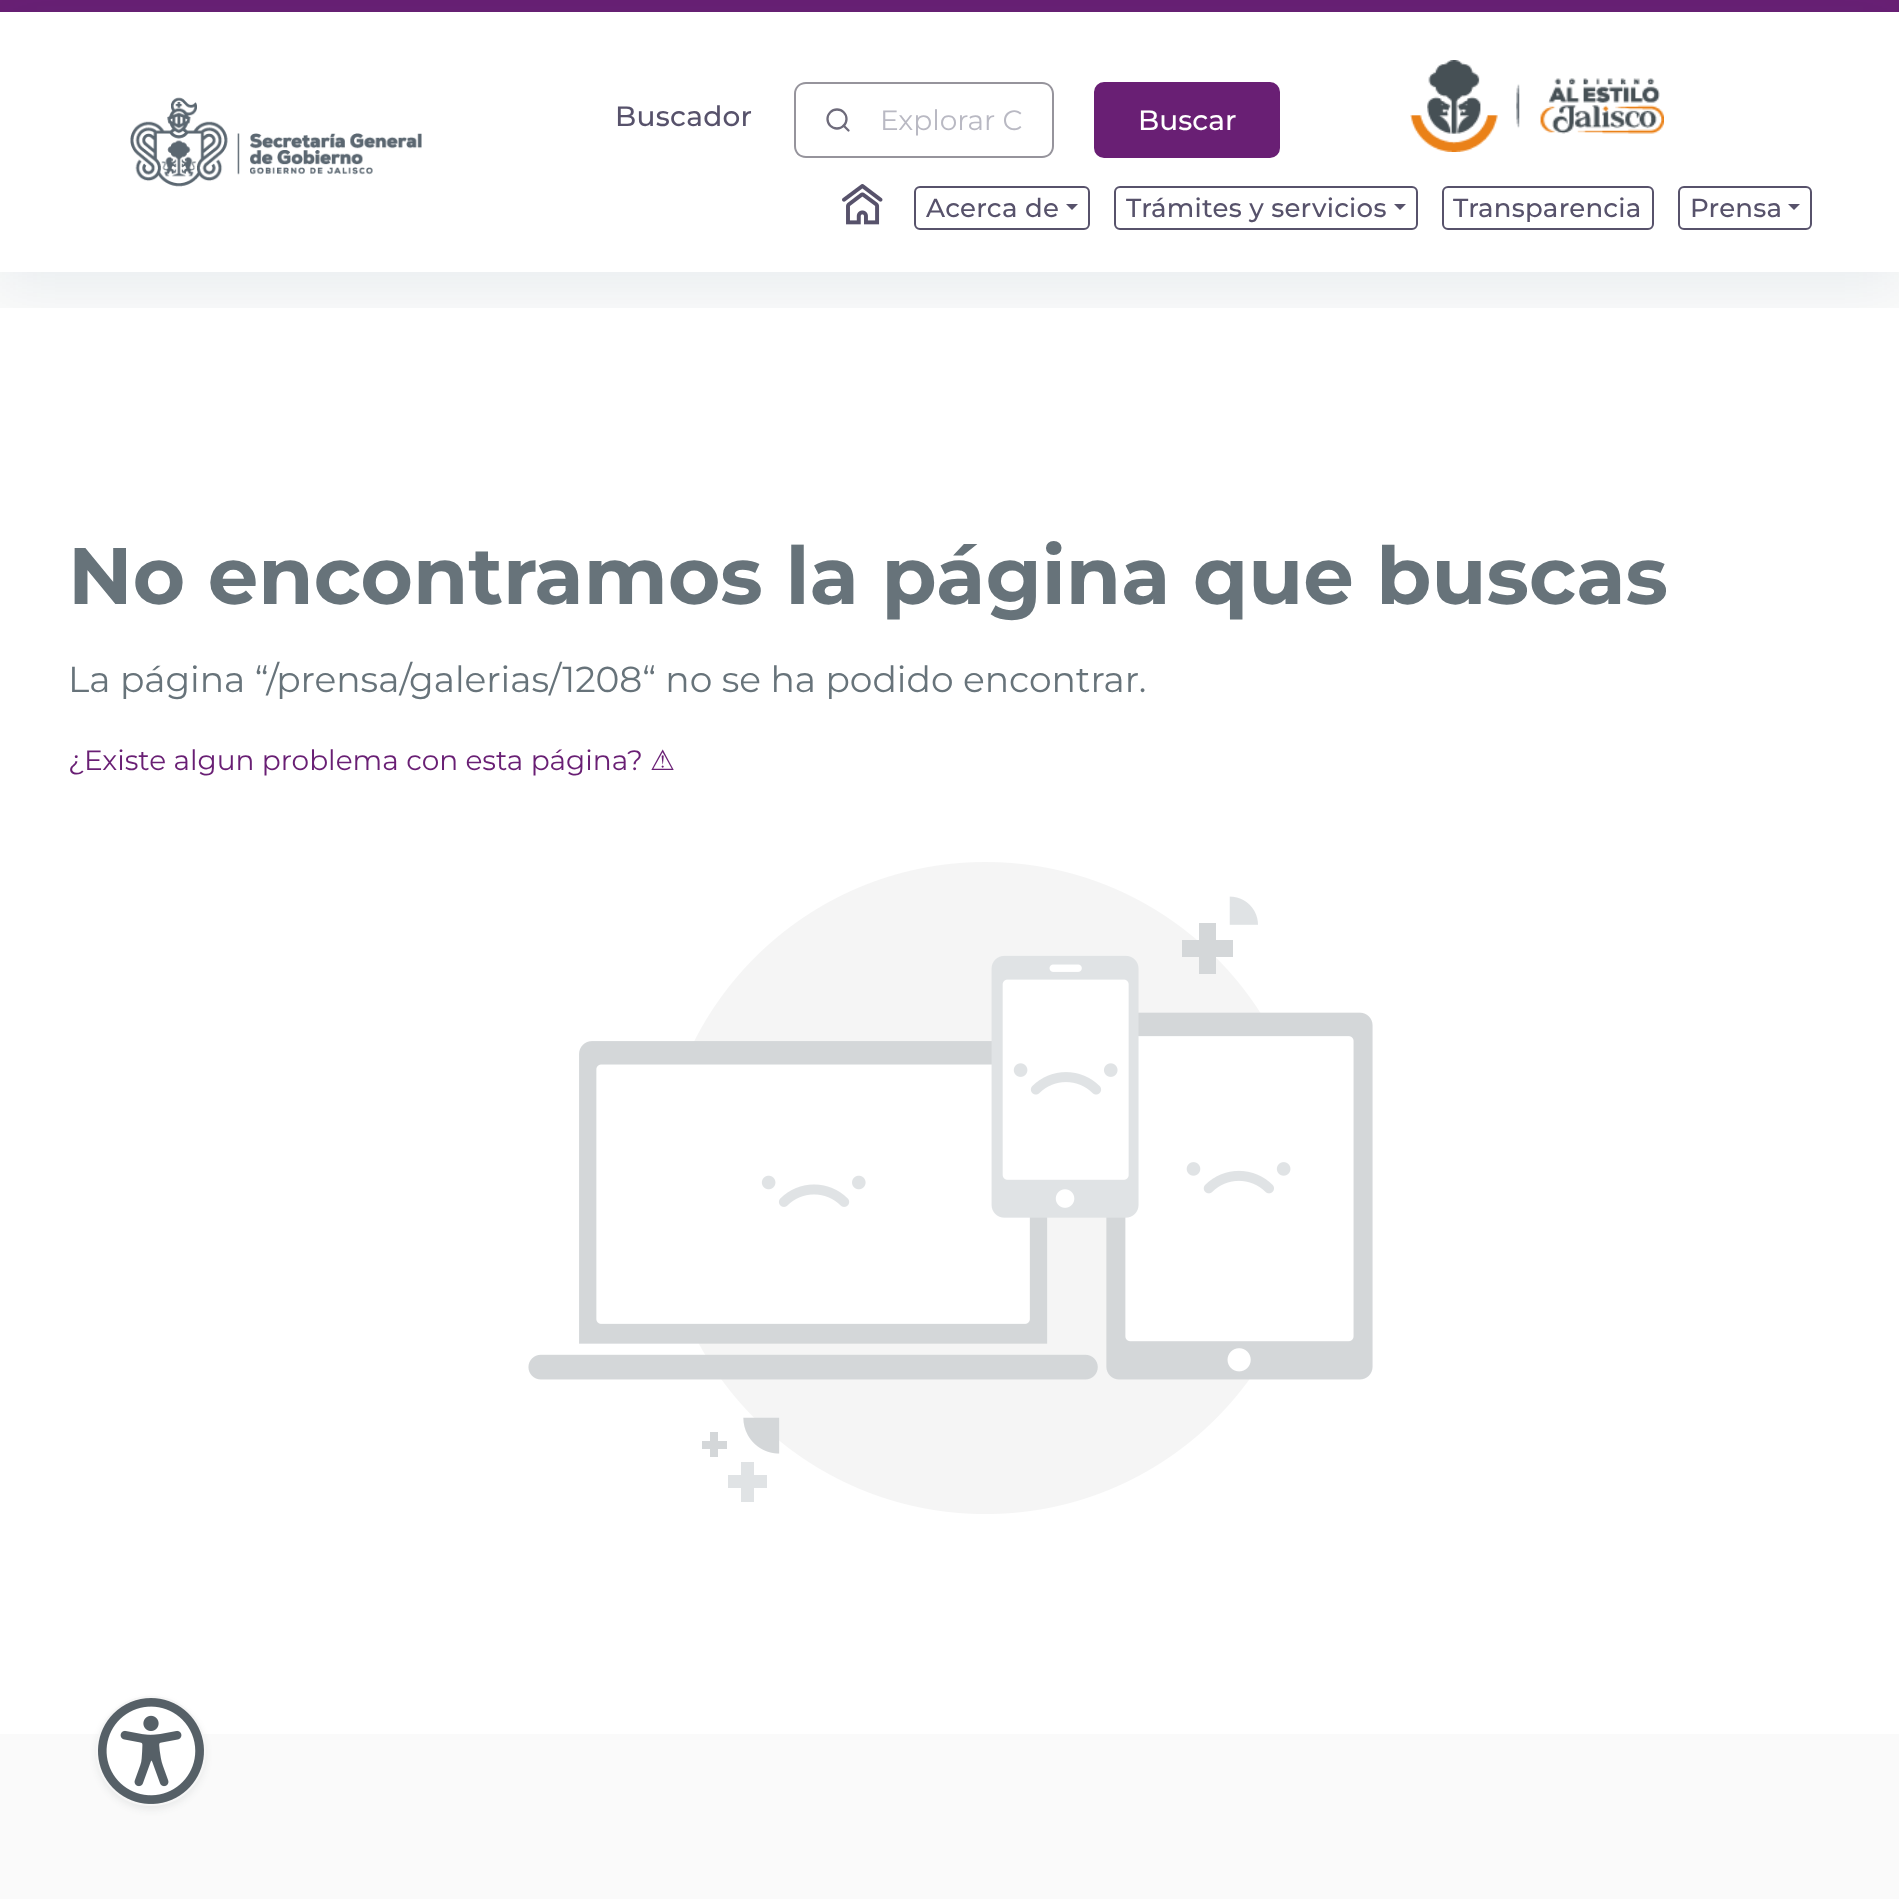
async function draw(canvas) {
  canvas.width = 1899
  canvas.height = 1899
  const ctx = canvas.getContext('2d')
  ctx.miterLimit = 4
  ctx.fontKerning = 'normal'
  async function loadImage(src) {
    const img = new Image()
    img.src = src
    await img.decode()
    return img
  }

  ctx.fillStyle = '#fafafa'
  ctx.fillRect(0, 0, 1899, 1899)
  ctx.fillStyle = '#691f74'
  ctx.fillRect(0, 0, 1899, 12)
  ctx.fillStyle = '#00456514'
  ctx.filter = 'blur(30px)'
  ctx.beginPath()
  ctx.rect(0, 22, 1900, 260)
  ctx.fill()
  ctx.filter = 'none'
  ctx.fillStyle = '#fff'
  ctx.fillRect(0, 12, 1899, 260)
  ctx.drawImage(await loadImage('image0.png'), 130, 97, 292, 90)
  ctx.letterSpacing = '0.25px'
  ctx.font = '500 28px Montserrat'
  ctx.fillStyle = '#57526b'
  ctx.fillText('Buscador', 615, 126)
  ctx.fillStyle = '#96949c'
  ctx.beginPath()
  ctx.moveTo(806, 82)
  ctx.lineTo(880, 82)
  ctx.lineTo(880, 158)
  ctx.lineTo(806, 158)
  ctx.bezierCurveTo(799, 158, 794, 153, 794, 146)
  ctx.lineTo(794, 94)
  ctx.bezierCurveTo(794, 87, 799, 82, 806, 82)
  ctx.closePath()
  ctx.moveTo(806, 84)
  ctx.lineTo(880, 84)
  ctx.lineTo(880, 156)
  ctx.lineTo(806, 156)
  ctx.bezierCurveTo(800, 156, 796, 152, 796, 146)
  ctx.lineTo(796, 94)
  ctx.bezierCurveTo(796, 88, 800, 84, 806, 84)
  ctx.closePath()
  ctx.fill('evenodd')
  ctx.beginPath()
  ctx.arc(837, 119, 9.5, 0, 2 * Math.PI)
  ctx.strokeStyle = '#6e6b7b'
  ctx.lineWidth = 2.3
  ctx.stroke()
  ctx.beginPath()
  ctx.moveTo(848.5, 130.5)
  ctx.lineTo(843.5, 125.5)
  ctx.lineCap = 'round'
  ctx.lineJoin = 'round'
  ctx.stroke()
  ctx.beginPath()
  ctx.moveTo(880, 82)
  ctx.lineTo(1042, 82)
  ctx.bezierCurveTo(1049, 82, 1054, 87, 1054, 94)
  ctx.lineTo(1054, 146)
  ctx.bezierCurveTo(1054, 153, 1049, 158, 1042, 158)
  ctx.lineTo(880, 158)
  ctx.closePath()
  ctx.moveTo(880, 84)
  ctx.lineTo(1042, 84)
  ctx.bezierCurveTo(1048, 84, 1052, 88, 1052, 94)
  ctx.lineTo(1052, 146)
  ctx.bezierCurveTo(1052, 152, 1048, 156, 1042, 156)
  ctx.lineTo(880, 156)
  ctx.closePath()
  ctx.fill('evenodd')
  ctx.letterSpacing = '0px'
  ctx.font = '28px Montserrat'
  ctx.fillStyle = '#b9b9c3'
  ctx.fillText('Explorar C', 880, 130)
  ctx.fillStyle = '#691f74'
  ctx.beginPath()
  ctx.roundRect(1095, 83, 184, 74, 9)
  ctx.fill()
  ctx.strokeStyle = '#691f74'
  ctx.lineWidth = 2
  ctx.lineJoin = 'miter'
  ctx.stroke()
  ctx.font = '500 28px Montserrat'
  ctx.fillStyle = '#fff'
  ctx.fillText('Buscar', 1138, 130)
  ctx.drawImage(await loadImage('image1.png'), 1410, 60, 254, 92)
  ctx.drawImage(await loadImage('image2.png'), 842, 184, 41, 41)
  ctx.beginPath()
  ctx.roundRect(915, 187, 174, 42, 5)
  ctx.strokeStyle = '#57526b'
  ctx.stroke()
  ctx.letterSpacing = '0.25px'
  ctx.font = '500 26px Montserrat'
  ctx.fillStyle = '#57526b'
  ctx.fillText('Acerca de', 926, 217)
  ctx.beginPath()
  ctx.moveTo(1066, 204)
  ctx.lineTo(1078, 204)
  ctx.lineTo(1072, 210)
  ctx.closePath()
  ctx.fill()
  ctx.beginPath()
  ctx.roundRect(1115, 187, 302, 42, 5)
  ctx.stroke()
  ctx.fillText('Trámites y servicios', 1126, 217)
  ctx.beginPath()
  ctx.moveTo(1394, 204)
  ctx.lineTo(1406, 204)
  ctx.lineTo(1400, 210)
  ctx.closePath()
  ctx.fill()
  ctx.beginPath()
  ctx.roundRect(1443, 187, 210, 42, 5)
  ctx.stroke()
  ctx.fillText('Transparencia', 1453, 217)
  ctx.beginPath()
  ctx.roundRect(1679, 187, 132, 42, 5)
  ctx.stroke()
  ctx.fillText('Prensa', 1690, 217)
  ctx.beginPath()
  ctx.moveTo(1788, 204)
  ctx.lineTo(1800, 204)
  ctx.lineTo(1794, 210)
  ctx.closePath()
  ctx.fill()
  ctx.fillStyle = '#fff'
  ctx.fillRect(0, 308, 1899, 1426)
  ctx.letterSpacing = '0px'
  ctx.font = 'bold 80px Montserrat'
  ctx.fillStyle = '#67737a'
  ctx.fillText('No encontramos la página que buscas', 68, 604)
  ctx.font = '36px Montserrat'
  ctx.fillText('La página “/prensa/galerias/1208“ no se ha podido encontrar.', 68, 692)
  ctx.font = '28px Montserrat'
  ctx.fillStyle = '#691f74'
  ctx.fillText('¿Existe algun problema con esta página?', 68, 770)
  ctx.font = '28px DejaVu Sans'
  ctx.fillText('⚠︎', 650, 770)
  ctx.drawImage(await loadImage('image3.png'), 528, 862, 845, 652)
  ctx.fillStyle = '#22292f12'
  ctx.filter = 'blur(3.5px)'
  ctx.beginPath()
  ctx.roundRect(96, 1700, 110, 110, 55)
  ctx.fill()
  ctx.filter = 'none'
  ctx.beginPath()
  ctx.arc(151, 1751, 54, 0, 2 * Math.PI)
  ctx.strokeStyle = '#f6f6f6'
  ctx.stroke()
  ctx.drawImage(await loadImage('image4.png'), 98, 1698, 106, 106)
}

draw(document.querySelector('canvas'))
